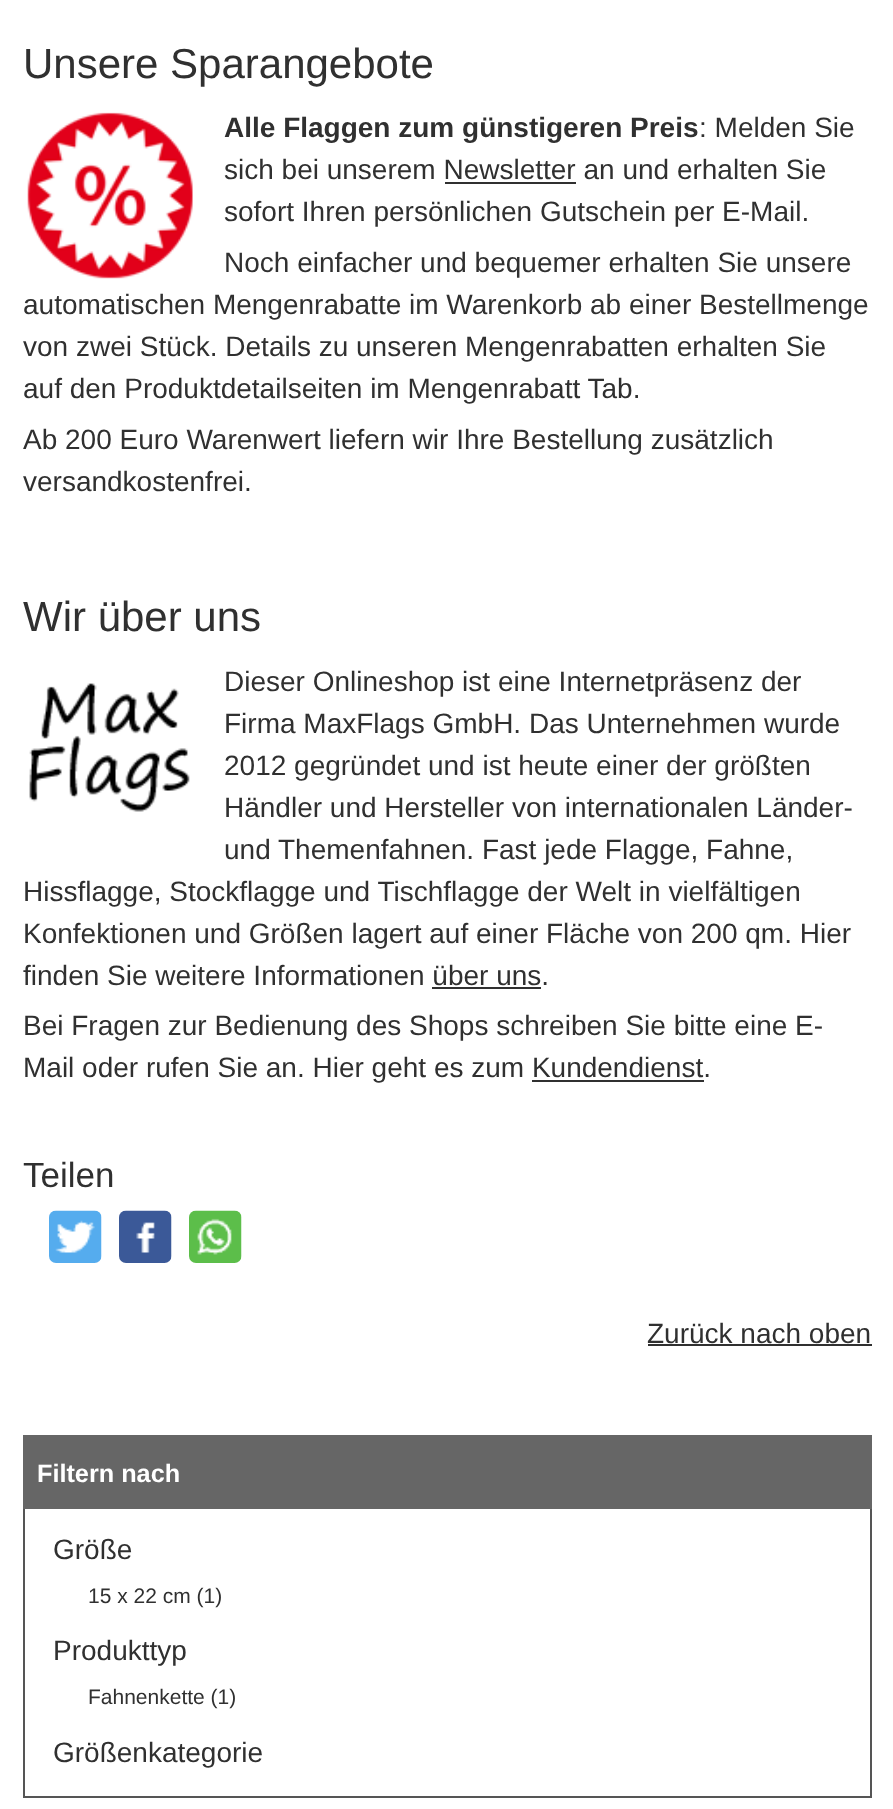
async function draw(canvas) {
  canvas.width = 893
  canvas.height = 1809
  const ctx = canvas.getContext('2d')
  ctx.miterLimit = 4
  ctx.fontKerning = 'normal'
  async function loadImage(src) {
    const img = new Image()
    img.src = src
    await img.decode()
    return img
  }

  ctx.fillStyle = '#fff'
  ctx.fillRect(0, 0, 893, 1809)
  ctx.font = '42px Liberation Sans'
  ctx.fillStyle = '#303030'
  ctx.fillText('Unsere Sparangebote', 23, 78)
  ctx.drawImage(await loadImage('image0.png'), 27, 112, 166, 167)
  ctx.font = 'bold 28px Liberation Sans'
  ctx.fillText('Alle Flaggen zum günstigeren Preis', 224, 137)
  ctx.font = '28px Liberation Sans'
  ctx.fillText(': Melden Sie', 699, 137)
  ctx.fillText('sich bei unserem Newsletter an und erhalten Sie', 224, 179)
  ctx.fillRect(445, 182, 131, 2)
  ctx.fillText('sofort Ihren persönlichen Gutschein per E-Mail.', 224, 221)
  ctx.fillText('Noch einfacher und bequemer erhalten Sie unsere', 224, 272)
  ctx.fillText('automatischen Mengenrabatte im Warenkorb ab einer Bestellmenge', 23, 314)
  ctx.fillText('von zwei Stück. Details zu unseren Mengenrabatten erhalten Sie', 23, 356)
  ctx.fillText('auf den Produktdetailseiten im Mengenrabatt Tab.', 23, 398)
  ctx.fillText('Ab 200 Euro Warenwert liefern wir Ihre Bestellung zusätzlich', 23, 449)
  ctx.fillText('versandkostenfrei.', 23, 491)
  ctx.font = '42px Liberation Sans'
  ctx.fillText('Wir über uns', 23, 631)
  ctx.font = '28px Liberation Sans'
  ctx.fillText('Dieser Onlineshop ist eine Internetpräsenz der', 224, 691)
  ctx.fillText('Firma MaxFlags GmbH. Das Unternehmen wurde', 224, 733)
  ctx.fillText('2012 gegründet und ist heute einer der größten', 224, 775)
  ctx.fillText('Händler und Hersteller von internationalen Länder-', 224, 817)
  ctx.fillText('und Themenfahnen. Fast jede Flagge, Fahne,', 224, 859)
  ctx.fillText('Hissflagge, Stockflagge und Tischflagge der Welt in vielfältigen', 23, 901)
  ctx.fillText('Konfektionen und Größen lagert auf einer Fläche von 200 qm. Hier', 23, 943)
  ctx.fillText('finden Sie weitere Informationen über uns.', 23, 985)
  ctx.fillRect(432, 987, 109, 2)
  ctx.drawImage(await loadImage('image1.png'), 29, 683, 161, 129)
  ctx.fillText('Bei Fragen zur Bedienung des Shops schreiben Sie bitte eine E-', 23, 1035)
  ctx.fillText('Mail oder rufen Sie an. Hier geht es zum Kundendienst.', 23, 1077)
  ctx.fillRect(532, 1080, 172, 2)
  ctx.font = '35px Liberation Sans'
  ctx.fillText('Teilen', 23, 1187)
  ctx.drawImage(await loadImage('image2.png'), 49, 1210, 53, 53)
  ctx.drawImage(await loadImage('image3.png'), 119, 1210, 53, 53)
  ctx.drawImage(await loadImage('image4.png'), 189, 1210, 53, 53)
  ctx.font = '28px Liberation Sans'
  ctx.fillText('Zurück nach oben', 647, 1343)
  ctx.fillRect(648, 1344, 224, 2)
  ctx.fillStyle = '#666'
  ctx.fillRect(23, 1435, 849, 74)
  ctx.font = 'bold 25.25px Liberation Sans'
  ctx.fillStyle = '#fff'
  ctx.fillText('Filtern nach', 37, 1482)
  ctx.fillStyle = '#555'
  ctx.fillRect(870, 1509, 2, 288)
  ctx.fillRect(23, 1796, 849, 2)
  ctx.fillRect(23, 1509, 2, 288)
  ctx.font = '28px Liberation Sans'
  ctx.fillStyle = '#303030'
  ctx.fillText('Größe', 53, 1559)
  ctx.font = '21px Liberation Sans'
  ctx.fillText('15 x 22 cm (1)', 88, 1603)
  ctx.font = '28px Liberation Sans'
  ctx.fillText('Produkttyp', 53, 1660)
  ctx.font = '21px Liberation Sans'
  ctx.fillText('Fahnenkette (1)', 88, 1704)
  ctx.font = '28px Liberation Sans'
  ctx.fillText('Größenkategorie', 53, 1762)
}

draw(document.querySelector('canvas'))
